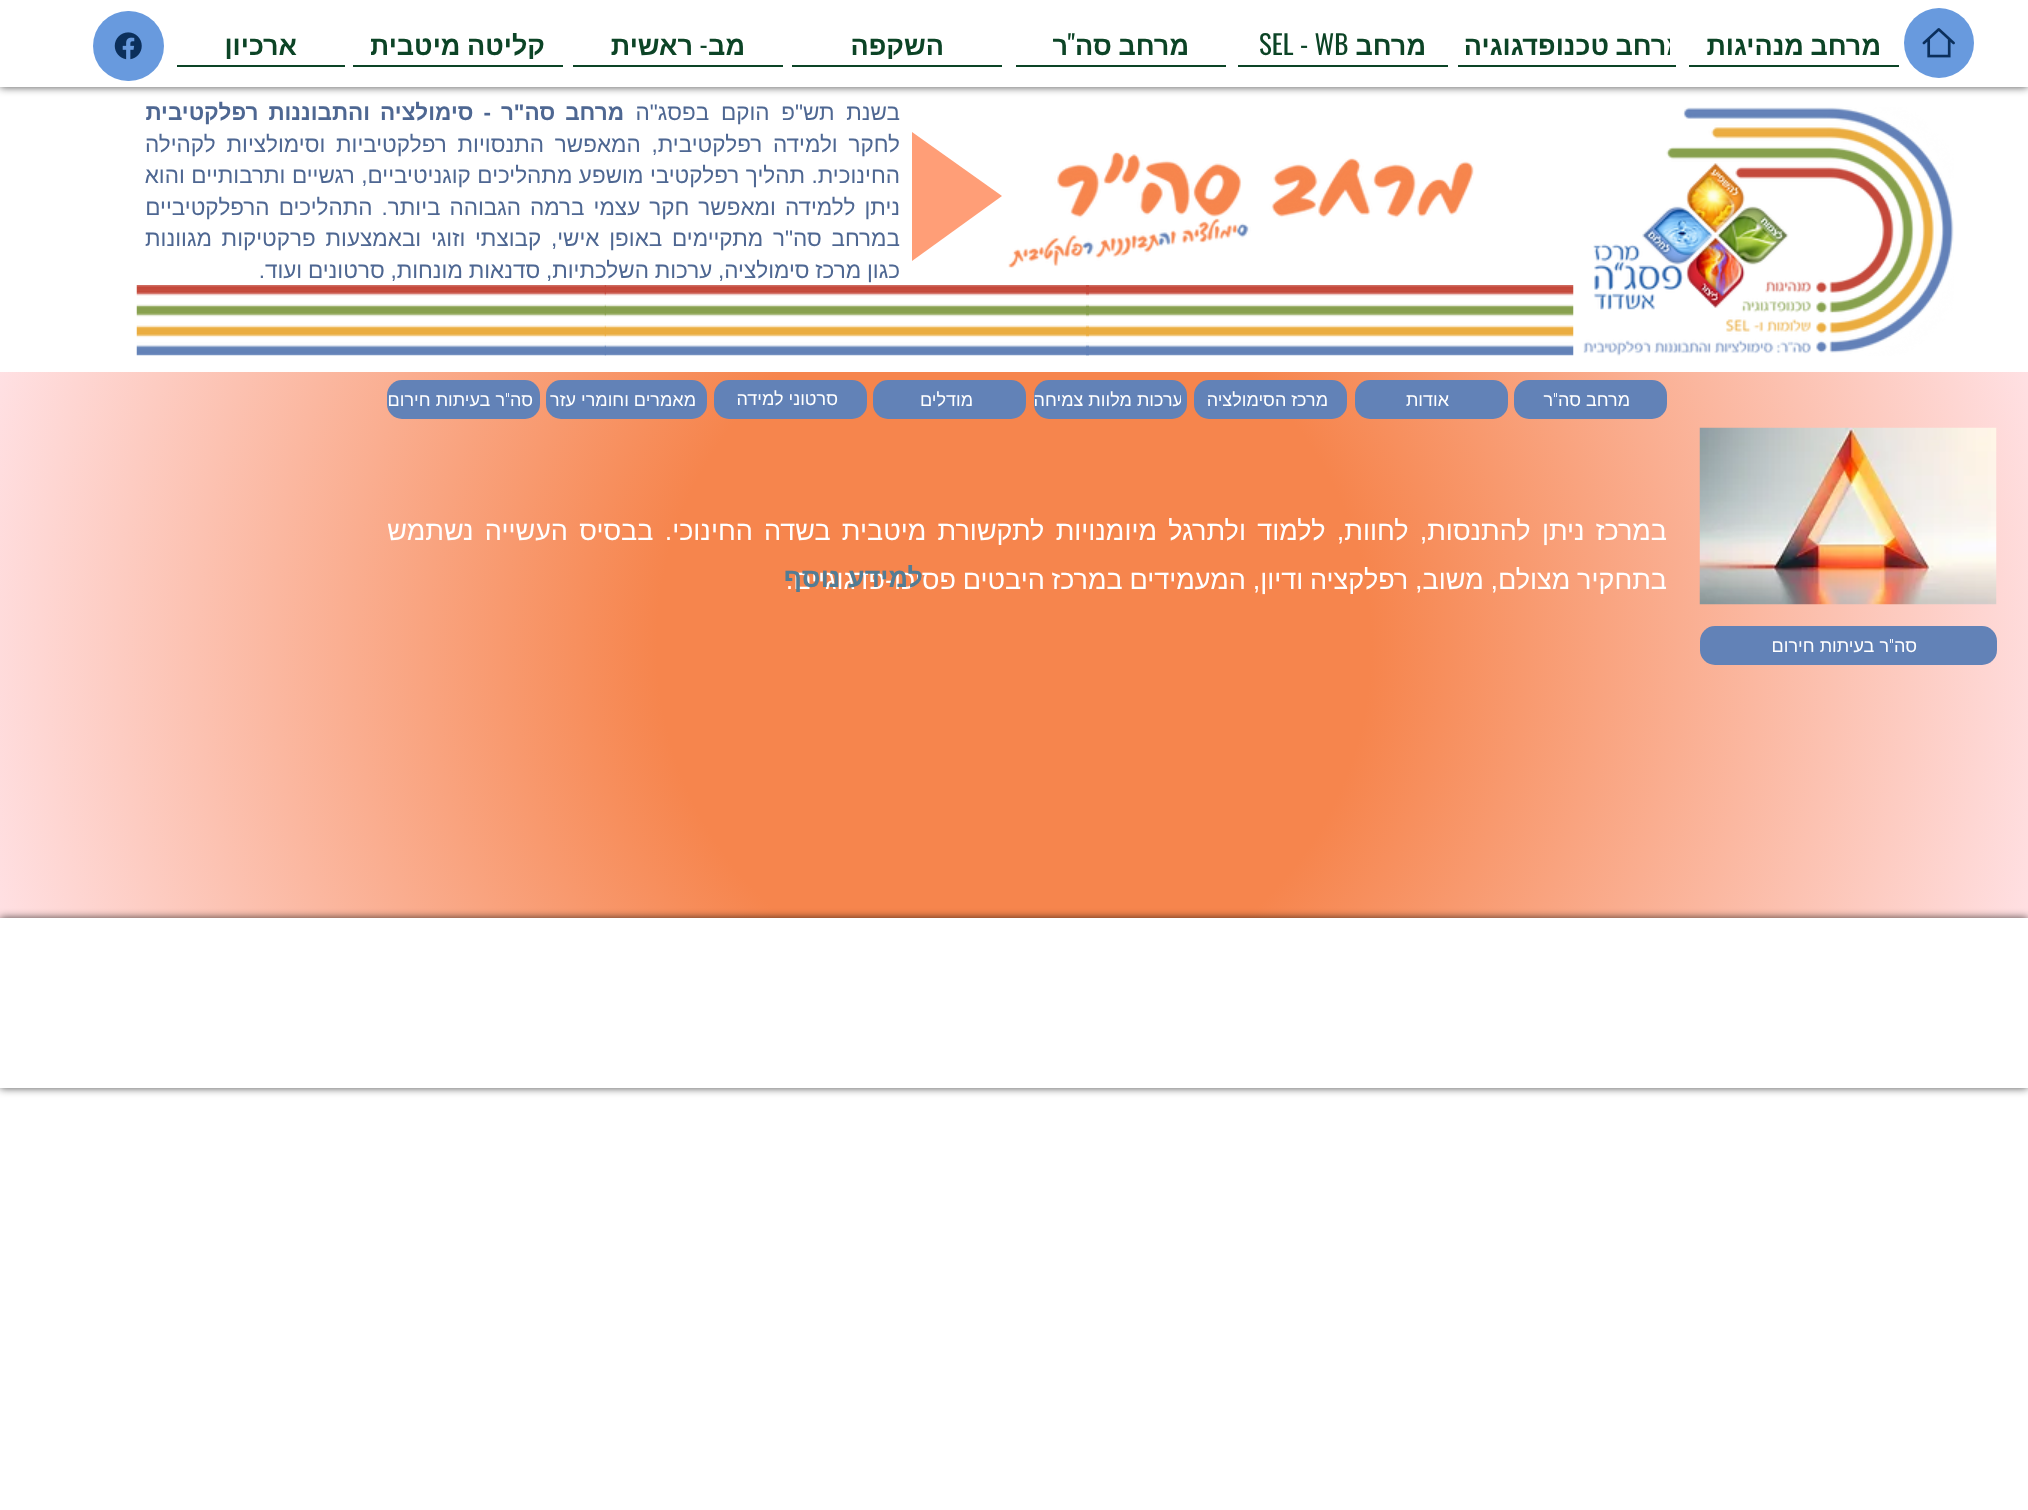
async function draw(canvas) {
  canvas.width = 2028
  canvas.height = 1510
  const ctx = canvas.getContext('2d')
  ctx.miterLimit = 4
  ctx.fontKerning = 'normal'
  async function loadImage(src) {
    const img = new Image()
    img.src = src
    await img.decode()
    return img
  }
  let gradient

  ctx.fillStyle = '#fff'
  ctx.fillRect(0, 0, 2028, 1510)
  ctx.fillStyle = '#000000b3'
  ctx.filter = 'blur(4px)'
  ctx.beginPath()
  ctx.rect(0, 0, 2028, 87)
  ctx.fill()
  ctx.filter = 'none'
  ctx.fillStyle = '#fff'
  ctx.fillRect(0, 0, 2028, 87)
  ctx.fillStyle = '#689ade'
  ctx.beginPath()
  ctx.arc(1939, 43, 35, 0, 2 * Math.PI)
  ctx.fill()
  ctx.drawImage(await loadImage('image0.png'), 1922, 28, 33, 30)
  ctx.fillStyle = '#0c4426'
  ctx.fillRect(1689, 65, 210, 2)
  ctx.wordSpacing = '-1px'
  ctx.direction = 'rtl'
  ctx.font = 'bold 27px Liberation Sans'
  ctx.fillText('מרחב מנהיגות', 1881, 55)
  ctx.fillRect(1458, 65, 218, 2)
  ctx.save()
  ctx.beginPath()
  ctx.rect(1464, 27, 206, 32)
  ctx.clip()
  ctx.fillText('מרחב טכנופדגוגיה', 1686, 55)
  ctx.restore()
  ctx.fillRect(1238, 65, 210, 2)
  ctx.wordSpacing = '0px'
  ctx.fillText('מרחב', 1426, 55)
  ctx.direction = 'ltr'
  ctx.font = '27px Oswald'
  ctx.fillText('SEL - WB', 1259, 55)
  ctx.fillRect(1016, 65, 210, 2)
  ctx.direction = 'rtl'
  ctx.fillText('"', 1075, 55)
  ctx.wordSpacing = '-1px'
  ctx.font = 'bold 27px Liberation Sans'
  ctx.fillText('מרחב סה', 1189, 55)
  ctx.save()
  ctx.beginPath()
  ctx.rect(1053, 27, 135, 32)
  ctx.clip()
  ctx.wordSpacing = '0px'
  ctx.fillText('ר', 1068, 55)
  ctx.restore()
  ctx.fillRect(792, 65, 210, 2)
  ctx.save()
  ctx.beginPath()
  ctx.rect(851, 27, 93, 32)
  ctx.clip()
  ctx.wordSpacing = '0px'
  ctx.fillText('השקפה', 944, 55)
  ctx.restore()
  ctx.fillRect(573, 65, 210, 2)
  ctx.wordSpacing = '0px'
  ctx.fillText('מב', 745, 55)
  ctx.font = '27px Oswald'
  ctx.fillText('-', 708, 55)
  ctx.font = 'bold 27px Liberation Sans'
  ctx.fillText('ראשית', 693, 55)
  ctx.fillRect(353, 65, 210, 2)
  ctx.save()
  ctx.beginPath()
  ctx.rect(371, 27, 174, 32)
  ctx.clip()
  ctx.wordSpacing = '-1px'
  ctx.fillText('קליטה מיטבית', 545, 55)
  ctx.restore()
  ctx.fillRect(177, 65, 168, 2)
  ctx.save()
  ctx.beginPath()
  ctx.rect(225, 27, 72, 32)
  ctx.clip()
  ctx.fillText('ארכיון', 297, 55)
  ctx.restore()
  ctx.fillStyle = '#689ade'
  ctx.beginPath()
  ctx.roundRect(93, 11, 71, 70, 35)
  ctx.fill()
  ctx.drawImage(await loadImage('image1.png'), 114, 32, 28, 28)
  ctx.wordSpacing = '5.5px'
  ctx.font = '22.5px Liberation Sans'
  ctx.fillStyle = '#4e6792'
  ctx.fillText('בשנת תש"פ הוקם בפסג"ה', 900, 120)
  ctx.wordSpacing = '3.75px'
  ctx.font = 'bold 22.5px Liberation Sans'
  ctx.fillText('מרחב סה"ר - סימולציה והתבוננות רפלקטיבית', 624, 120)
  ctx.wordSpacing = '4.5px'
  ctx.font = '22.5px Liberation Sans'
  ctx.fillText('לחקר ולמידה רפלקטיבית, המאפשר התנסויות רפלקטיביות וסימולציות לקהילה', 900, 152)
  ctx.wordSpacing = '0.25px'
  ctx.fillText('החינוכית. תהליך רפלקטיבי מושפע מתהליכים קוגניטיביים, רגשיים ותרבותיים והוא', 900, 183)
  ctx.wordSpacing = '2.75px'
  ctx.fillText('ניתן ללמידה ומאפשר חקר עצמי ברמה הגבוהה ביותר. התהליכים הרפלקטיביים', 900, 215)
  ctx.wordSpacing = '3.5px'
  ctx.fillText('במרחב סה"ר מתקיימים באופן אישי, קבוצתי וזוגי ובאמצעות פרקטיקות מגוונות', 900, 246)
  ctx.wordSpacing = '-0.5px'
  ctx.fillText('כגון מרכז סימולציה, ערכות השלכתיות, סדנאות מונחות, סרטונים ועוד.', 900, 278)
  ctx.drawImage(await loadImage('image3.png'), 1593, 163, 196, 147)
  ctx.drawImage(await loadImage('image2.png'), 1583, 107, 371, 249)
  ctx.drawImage(await loadImage('image4.png'), 1086, 285, 488, 71)
  ctx.drawImage(await loadImage('image5.png'), 604, 285, 485, 71)
  ctx.drawImage(await loadImage('image6.png'), 136, 285, 470, 71)
  ctx.drawImage(await loadImage('image7.png'), 1008, 151, 466, 117)
  ctx.fillStyle = '#ff9e77'
  ctx.beginPath()
  ctx.moveTo(1002, 196)
  ctx.lineTo(912, 261)
  ctx.lineTo(912, 132)
  ctx.closePath()
  ctx.fill()
  gradient = ctx.createRadialGradient(1014, 645, 0, 1014, 645, 1050)
  gradient.addColorStop(0.34, '#f6854d')
  gradient.addColorStop(1, '#ffe0e3')
  ctx.fillStyle = gradient
  ctx.fillRect(0, 372, 2028, 546)
  ctx.fillStyle = '#6282b7'
  ctx.beginPath()
  ctx.roundRect(1514, 380, 153, 39, 15)
  ctx.fill()
  ctx.wordSpacing = '0px'
  ctx.font = '18px Liberation Sans'
  ctx.fillStyle = '#fff'
  ctx.fillText('מרחב סה', 1630, 406)
  ctx.font = '300 18px helvetica'
  ctx.fillText('"', 1558, 406)
  ctx.font = '18px Liberation Sans'
  ctx.fillText('ר', 1553, 406)
  ctx.fillStyle = '#6282b7'
  ctx.beginPath()
  ctx.roundRect(1355, 380, 153, 39, 15)
  ctx.fill()
  ctx.fillStyle = '#fff'
  ctx.fillText('אודות', 1449, 406)
  ctx.fillStyle = '#6282b7'
  ctx.beginPath()
  ctx.roundRect(1194, 380, 153, 39, 15)
  ctx.fill()
  ctx.fillStyle = '#fff'
  ctx.fillText('מרכז הסימולציה', 1328, 406)
  ctx.fillStyle = '#6282b7'
  ctx.beginPath()
  ctx.roundRect(1034, 380, 153, 39, 15)
  ctx.fill()
  ctx.save()
  ctx.beginPath()
  ctx.rect(1034, 389, 147, 22)
  ctx.clip()
  ctx.fillStyle = '#fff'
  ctx.fillText('ערכות מלוות צמיחה', 1183, 406)
  ctx.restore()
  ctx.beginPath()
  ctx.roundRect(873, 380, 153, 39, 15)
  ctx.fill()
  ctx.fillStyle = '#fff'
  ctx.fillText('מודלים', 973, 406)
  ctx.fillStyle = '#6282b7'
  ctx.beginPath()
  ctx.roundRect(714, 380, 153, 39, 15)
  ctx.fill()
  ctx.fillStyle = '#fff'
  ctx.fillText('סרטוני למידה', 838, 405)
  ctx.fillStyle = '#6282b7'
  ctx.beginPath()
  ctx.roundRect(546, 380, 161, 39, 15)
  ctx.fill()
  ctx.fillStyle = '#fff'
  ctx.fillText('מאמרים וחומרי עזר', 696, 406)
  ctx.fillStyle = '#6282b7'
  ctx.beginPath()
  ctx.roundRect(387, 380, 153, 39, 15)
  ctx.fill()
  ctx.fillStyle = '#fff'
  ctx.fillText('סה', 533, 406)
  ctx.font = '300 18px helvetica'
  ctx.fillText('"', 510, 406)
  ctx.font = '18px Liberation Sans'
  ctx.fillText('ר בעיתות חירום', 505, 406)
  ctx.drawImage(await loadImage('image8.png'), 1699, 427, 298, 178)
  ctx.wordSpacing = '3.75px'
  ctx.font = '27px Liberation Sans'
  ctx.fillText('במרכז ניתן להתנסות, לחוות, ללמוד ולתרגל מיומנויות לתקשורת מיטבית בשדה החינוכי. בבסיס העשייה נשתמש', 1667, 540)
  ctx.wordSpacing = '-0.75px'
  ctx.fillText('בתחקיר מצולם, משוב, רפלקציה ודיון, המעמידים במרכז היבטים פסיכו-פדגוגיים.', 1667, 589)
  ctx.wordSpacing = '0px'
  ctx.font = 'bold 27px Liberation Sans'
  ctx.fillStyle = '#537c94'
  ctx.fillText('למידע נוסף', 923, 587)
  ctx.fillStyle = '#6282b7'
  ctx.beginPath()
  ctx.roundRect(1700, 626, 297, 39, 15)
  ctx.fill()
  ctx.font = '18px Liberation Sans'
  ctx.fillStyle = '#fff'
  ctx.fillText('סה', 1917, 652)
  ctx.font = '300 18px helvetica'
  ctx.fillText('"', 1894, 652)
  ctx.font = '18px Liberation Sans'
  ctx.fillText('ר בעיתות חירום', 1889, 652)
  ctx.save()
  ctx.beginPath()
  ctx.moveTo(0, 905)
  ctx.lineTo(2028, 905)
  ctx.lineTo(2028, 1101)
  ctx.lineTo(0, 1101)
  ctx.closePath()
  ctx.moveTo(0, 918)
  ctx.lineTo(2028, 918)
  ctx.lineTo(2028, 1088)
  ctx.lineTo(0, 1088)
  ctx.closePath()
  ctx.clip('evenodd')
  ctx.fillStyle = '#000000b3'
  ctx.filter = 'blur(4px)'
  ctx.beginPath()
  ctx.rect(0, 918, 2028, 170)
  ctx.fill()
  ctx.filter = 'none'
  ctx.restore()
  ctx.fillStyle = '#ffffff99'
  ctx.fillRect(0, 1087, 2028, 1)
}

draw(document.querySelector('canvas'))
